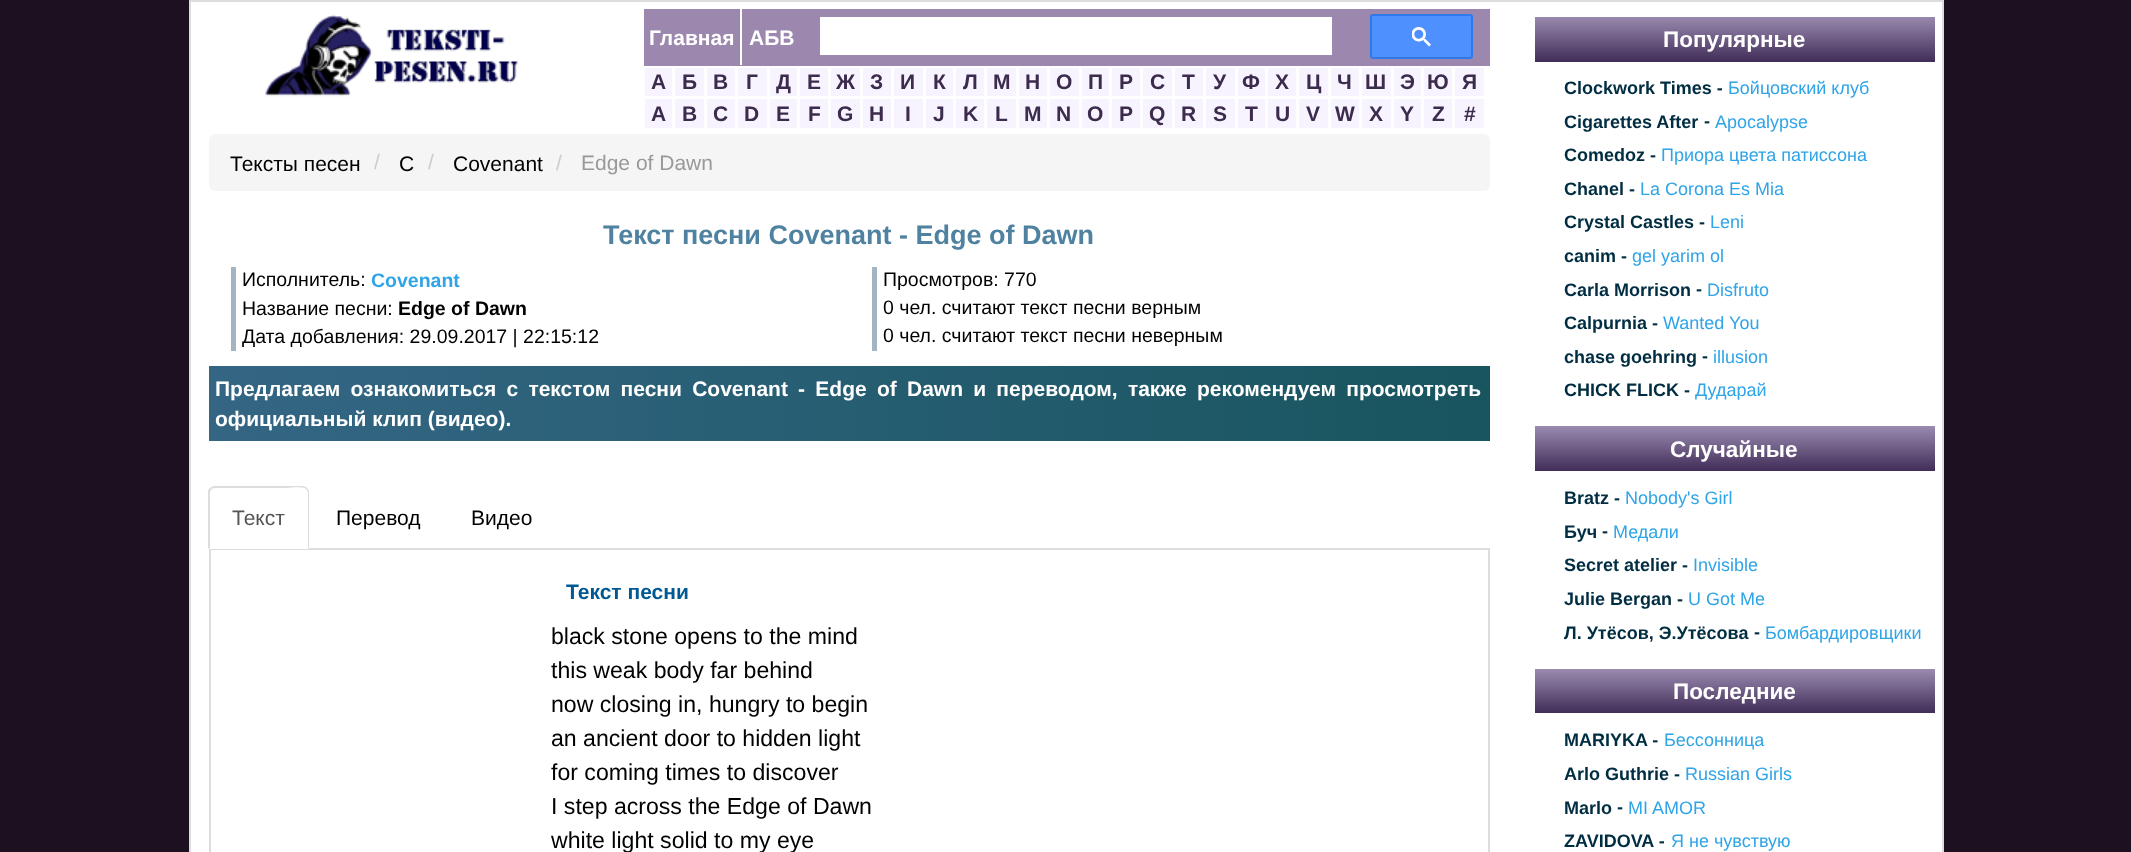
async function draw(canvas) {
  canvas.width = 2131
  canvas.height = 852
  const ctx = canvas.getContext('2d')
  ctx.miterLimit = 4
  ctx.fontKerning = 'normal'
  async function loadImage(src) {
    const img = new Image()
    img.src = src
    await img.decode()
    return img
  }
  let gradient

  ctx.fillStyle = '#1d1021'
  ctx.fillRect(0, 0, 2131, 852)
  ctx.fillStyle = '#fff'
  ctx.beginPath()
  ctx.rect(190, 1, 1753, 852)
  ctx.fill()
  ctx.strokeStyle = '#ddd'
  ctx.lineWidth = 2
  ctx.stroke()
  ctx.drawImage(await loadImage('image0.png'), 265, 14, 253, 83)
  ctx.fillStyle = '#9c88af'
  ctx.fillRect(644, 9, 846, 57)
  ctx.fillStyle = '#fff'
  ctx.fillRect(820, 17, 512, 38)
  ctx.fillStyle = '#4d90fe'
  ctx.beginPath()
  ctx.roundRect(1371, 15, 101, 43, 2)
  ctx.fill()
  ctx.strokeStyle = '#3079ed'
  ctx.stroke()
  ctx.drawImage(await loadImage('image1.png'), 1412, 27, 19, 20)
  ctx.fillStyle = '#fff'
  ctx.fillRect(740, 9, 2, 56)
  ctx.font = 'bold 21px Liberation Sans'
  ctx.fillText('Главная', 649, 45)
  ctx.fillText('АБВ', 749, 45)
  ctx.fillStyle = '#f7f4ff'
  ctx.fillRect(645, 68, 27, 28)
  ctx.fillStyle = '#3c2b4d'
  ctx.fillText('А', 651, 89)
  ctx.fillStyle = '#f7f4ff'
  ctx.fillRect(675, 68, 29, 28)
  ctx.fillStyle = '#3c2b4d'
  ctx.fillText('Б', 682, 89)
  ctx.fillStyle = '#f7f4ff'
  ctx.fillRect(707, 68, 28, 28)
  ctx.fillStyle = '#3c2b4d'
  ctx.fillText('В', 713, 89)
  ctx.fillStyle = '#f7f4ff'
  ctx.fillRect(738, 68, 29, 28)
  ctx.fillStyle = '#3c2b4d'
  ctx.fillText('Г', 746, 89)
  ctx.fillStyle = '#f7f4ff'
  ctx.fillRect(770, 68, 27, 28)
  ctx.fillStyle = '#3c2b4d'
  ctx.fillText('Д', 776, 89)
  ctx.fillStyle = '#f7f4ff'
  ctx.fillRect(800, 68, 28, 28)
  ctx.fillStyle = '#3c2b4d'
  ctx.fillText('Е', 807, 89)
  ctx.fillStyle = '#f7f4ff'
  ctx.fillRect(831, 68, 29, 28)
  ctx.fillStyle = '#3c2b4d'
  ctx.fillText('Ж', 836, 89)
  ctx.fillStyle = '#f7f4ff'
  ctx.fillRect(863, 68, 28, 28)
  ctx.fillStyle = '#3c2b4d'
  ctx.fillText('З', 870, 89)
  ctx.fillStyle = '#f7f4ff'
  ctx.fillRect(894, 68, 29, 28)
  ctx.fillStyle = '#3c2b4d'
  ctx.fillText('И', 900, 89)
  ctx.fillStyle = '#f7f4ff'
  ctx.fillRect(926, 68, 27, 28)
  ctx.fillStyle = '#3c2b4d'
  ctx.fillText('К', 933, 89)
  ctx.fillStyle = '#f7f4ff'
  ctx.fillRect(956, 68, 28, 28)
  ctx.fillStyle = '#3c2b4d'
  ctx.fillText('Л', 963, 89)
  ctx.fillStyle = '#f7f4ff'
  ctx.fillRect(987, 68, 29, 28)
  ctx.fillStyle = '#3c2b4d'
  ctx.fillText('М', 993, 89)
  ctx.fillStyle = '#f7f4ff'
  ctx.fillRect(1019, 68, 28, 28)
  ctx.fillStyle = '#3c2b4d'
  ctx.fillText('Н', 1025, 89)
  ctx.fillStyle = '#f7f4ff'
  ctx.fillRect(1050, 68, 29, 28)
  ctx.fillStyle = '#3c2b4d'
  ctx.fillText('О', 1056, 89)
  ctx.fillStyle = '#f7f4ff'
  ctx.fillRect(1082, 68, 27, 28)
  ctx.fillStyle = '#3c2b4d'
  ctx.fillText('П', 1088, 89)
  ctx.fillStyle = '#f7f4ff'
  ctx.fillRect(1112, 68, 28, 28)
  ctx.fillStyle = '#3c2b4d'
  ctx.fillText('Р', 1119, 89)
  ctx.fillStyle = '#f7f4ff'
  ctx.fillRect(1143, 68, 29, 28)
  ctx.fillStyle = '#3c2b4d'
  ctx.fillText('С', 1150, 89)
  ctx.fillStyle = '#f7f4ff'
  ctx.fillRect(1175, 68, 28, 28)
  ctx.fillStyle = '#3c2b4d'
  ctx.fillText('Т', 1182, 89)
  ctx.fillStyle = '#f7f4ff'
  ctx.fillRect(1206, 68, 29, 28)
  ctx.fillStyle = '#3c2b4d'
  ctx.fillText('У', 1213, 89)
  ctx.fillStyle = '#f7f4ff'
  ctx.fillRect(1238, 68, 27, 28)
  ctx.fillStyle = '#3c2b4d'
  ctx.fillText('Ф', 1242, 89)
  ctx.fillStyle = '#f7f4ff'
  ctx.fillRect(1268, 68, 28, 28)
  ctx.fillStyle = '#3c2b4d'
  ctx.fillText('Х', 1275, 89)
  ctx.fillStyle = '#f7f4ff'
  ctx.fillRect(1299, 68, 29, 28)
  ctx.fillStyle = '#3c2b4d'
  ctx.fillText('Ц', 1306, 89)
  ctx.fillStyle = '#f7f4ff'
  ctx.fillRect(1331, 68, 28, 28)
  ctx.fillStyle = '#3c2b4d'
  ctx.fillText('Ч', 1337, 89)
  ctx.fillStyle = '#f7f4ff'
  ctx.fillRect(1362, 68, 29, 28)
  ctx.fillStyle = '#3c2b4d'
  ctx.fillText('Ш', 1365, 89)
  ctx.fillStyle = '#f7f4ff'
  ctx.fillRect(1394, 68, 27, 28)
  ctx.fillStyle = '#3c2b4d'
  ctx.fillText('Э', 1400, 89)
  ctx.fillStyle = '#f7f4ff'
  ctx.fillRect(1424, 68, 28, 28)
  ctx.fillStyle = '#3c2b4d'
  ctx.fillText('Ю', 1427, 89)
  ctx.fillStyle = '#f7f4ff'
  ctx.fillRect(1455, 68, 29, 28)
  ctx.fillStyle = '#3c2b4d'
  ctx.fillText('Я', 1462, 89)
  ctx.fillStyle = '#f7f4ff'
  ctx.fillRect(645, 99, 27, 29)
  ctx.fillStyle = '#3c2b4d'
  ctx.fillText('A', 651, 121)
  ctx.fillStyle = '#f7f4ff'
  ctx.fillRect(675, 99, 29, 29)
  ctx.fillStyle = '#3c2b4d'
  ctx.fillText('B', 682, 121)
  ctx.fillStyle = '#f7f4ff'
  ctx.fillRect(707, 99, 28, 29)
  ctx.fillStyle = '#3c2b4d'
  ctx.fillText('C', 713, 121)
  ctx.fillStyle = '#f7f4ff'
  ctx.fillRect(738, 99, 29, 29)
  ctx.fillStyle = '#3c2b4d'
  ctx.fillText('D', 744, 121)
  ctx.fillStyle = '#f7f4ff'
  ctx.fillRect(770, 99, 27, 29)
  ctx.fillStyle = '#3c2b4d'
  ctx.fillText('E', 776, 121)
  ctx.fillStyle = '#f7f4ff'
  ctx.fillRect(800, 99, 28, 29)
  ctx.fillStyle = '#3c2b4d'
  ctx.fillText('F', 808, 121)
  ctx.fillStyle = '#f7f4ff'
  ctx.fillRect(831, 99, 29, 29)
  ctx.fillStyle = '#3c2b4d'
  ctx.fillText('G', 837, 121)
  ctx.fillStyle = '#f7f4ff'
  ctx.fillRect(863, 99, 28, 29)
  ctx.fillStyle = '#3c2b4d'
  ctx.fillText('H', 869, 121)
  ctx.fillStyle = '#f7f4ff'
  ctx.fillRect(894, 99, 29, 29)
  ctx.fillStyle = '#3c2b4d'
  ctx.fillText('I', 905, 121)
  ctx.fillStyle = '#f7f4ff'
  ctx.fillRect(926, 99, 27, 29)
  ctx.fillStyle = '#3c2b4d'
  ctx.fillText('J', 933, 121)
  ctx.fillStyle = '#f7f4ff'
  ctx.fillRect(956, 99, 28, 29)
  ctx.fillStyle = '#3c2b4d'
  ctx.fillText('K', 963, 121)
  ctx.fillStyle = '#f7f4ff'
  ctx.fillRect(987, 99, 29, 29)
  ctx.fillStyle = '#3c2b4d'
  ctx.fillText('L', 995, 121)
  ctx.fillStyle = '#f7f4ff'
  ctx.fillRect(1019, 99, 28, 29)
  ctx.fillStyle = '#3c2b4d'
  ctx.fillText('M', 1024, 121)
  ctx.fillStyle = '#f7f4ff'
  ctx.fillRect(1050, 99, 29, 29)
  ctx.fillStyle = '#3c2b4d'
  ctx.fillText('N', 1056, 121)
  ctx.fillStyle = '#f7f4ff'
  ctx.fillRect(1082, 99, 27, 29)
  ctx.fillStyle = '#3c2b4d'
  ctx.fillText('O', 1087, 121)
  ctx.fillStyle = '#f7f4ff'
  ctx.fillRect(1112, 99, 28, 29)
  ctx.fillStyle = '#3c2b4d'
  ctx.fillText('P', 1119, 121)
  ctx.fillStyle = '#f7f4ff'
  ctx.fillRect(1143, 99, 29, 29)
  ctx.fillStyle = '#3c2b4d'
  ctx.fillText('Q', 1149, 121)
  ctx.fillStyle = '#f7f4ff'
  ctx.fillRect(1175, 99, 28, 29)
  ctx.fillStyle = '#3c2b4d'
  ctx.fillText('R', 1181, 121)
  ctx.fillStyle = '#f7f4ff'
  ctx.fillRect(1206, 99, 29, 29)
  ctx.fillStyle = '#3c2b4d'
  ctx.fillText('S', 1213, 121)
  ctx.fillStyle = '#f7f4ff'
  ctx.fillRect(1238, 99, 27, 29)
  ctx.fillStyle = '#3c2b4d'
  ctx.fillText('T', 1245, 121)
  ctx.fillStyle = '#f7f4ff'
  ctx.fillRect(1268, 99, 28, 29)
  ctx.fillStyle = '#3c2b4d'
  ctx.fillText('U', 1275, 121)
  ctx.fillStyle = '#f7f4ff'
  ctx.fillRect(1299, 99, 29, 29)
  ctx.fillStyle = '#3c2b4d'
  ctx.fillText('V', 1306, 121)
  ctx.fillStyle = '#f7f4ff'
  ctx.fillRect(1331, 99, 28, 29)
  ctx.fillStyle = '#3c2b4d'
  ctx.fillText('W', 1335, 121)
  ctx.fillStyle = '#f7f4ff'
  ctx.fillRect(1362, 99, 29, 29)
  ctx.fillStyle = '#3c2b4d'
  ctx.fillText('X', 1369, 121)
  ctx.fillStyle = '#f7f4ff'
  ctx.fillRect(1394, 99, 27, 29)
  ctx.fillStyle = '#3c2b4d'
  ctx.fillText('Y', 1400, 121)
  ctx.fillStyle = '#f7f4ff'
  ctx.fillRect(1424, 99, 28, 29)
  ctx.fillStyle = '#3c2b4d'
  ctx.fillText('Z', 1432, 121)
  ctx.fillStyle = '#f7f4ff'
  ctx.fillRect(1455, 99, 29, 29)
  ctx.fillStyle = '#3c2b4d'
  ctx.fillText('#', 1464, 121)
  ctx.fillStyle = '#f5f5f5'
  ctx.beginPath()
  ctx.roundRect(209, 134, 1281, 57, 6)
  ctx.fill()
  ctx.font = '21px Liberation Sans'
  ctx.fillStyle = '#000'
  ctx.fillText('Тексты песен', 230, 171)
  ctx.fillStyle = '#ccc'
  ctx.fillText('/', 374, 169)
  ctx.fillStyle = '#000'
  ctx.fillText('C', 399, 171)
  ctx.fillStyle = '#ccc'
  ctx.fillText('/', 428, 169)
  ctx.fillStyle = '#000'
  ctx.fillText('Covenant', 453, 171)
  ctx.fillStyle = '#ccc'
  ctx.fillText('/', 556, 170)
  ctx.fillStyle = '#999'
  ctx.fillText('Edge of Dawn', 581, 170)
  ctx.font = 'bold 27px Liberation Sans'
  ctx.fillStyle = '#4f82a0'
  ctx.fillText('Текст песни Covenant - Edge of Dawn', 603, 244)
  ctx.fillStyle = '#a3b4c3'
  ctx.fillRect(231, 267, 5, 84)
  ctx.font = '19.5px Liberation Sans'
  ctx.fillStyle = '#000'
  ctx.fillText('Исполнитель:', 242, 286)
  ctx.font = 'bold 19.5px Liberation Sans'
  ctx.fillStyle = '#2fa4e7'
  ctx.fillText('Covenant', 371, 287)
  ctx.font = '19.5px Liberation Sans'
  ctx.fillStyle = '#000'
  ctx.fillText('Название песни:', 242, 315)
  ctx.font = 'bold 19.5px Liberation Sans'
  ctx.fillText('Edge of Dawn', 398, 315)
  ctx.font = '19.5px Liberation Sans'
  ctx.fillText('Дата добавления: 29.09.2017 | 22:15:12', 242, 343)
  ctx.fillStyle = '#a3b4c3'
  ctx.fillRect(872, 267, 5, 84)
  ctx.fillStyle = '#000'
  ctx.fillText('Просмотров: 770', 883, 286)
  ctx.fillText('0 чел. считают текст песни верным', 883, 314)
  ctx.fillText('0 чел. считают текст песни неверным', 883, 342)
  gradient = ctx.createLinearGradient(209, 404, 1490, 404)
  gradient.addColorStop(0.01, '#346684')
  gradient.addColorStop(1, '#18555f')
  ctx.fillStyle = gradient
  ctx.fillRect(209, 366, 1281, 75)
  ctx.wordSpacing = '4.4px'
  ctx.font = 'bold 21px Liberation Sans'
  ctx.fillStyle = '#fff'
  ctx.fillText('Предлагаем ознакомиться с текстом песни Covenant - Edge of Dawn и переводом, также рекомендуем просмотреть', 215, 396)
  ctx.wordSpacing = '0px'
  ctx.fillText('официальный клип (видео).', 215, 426)
  ctx.fillStyle = '#ddd'
  ctx.fillRect(209, 548, 1281, 2)
  ctx.fillStyle = '#fff'
  ctx.beginPath()
  ctx.roundRect(209, 486, 100, 63, [6, 6, 0, 0])
  ctx.fill()
  ctx.fillStyle = '#ddd'
  ctx.beginPath()
  ctx.moveTo(214, 486)
  ctx.bezierCurveTo(213, 486, 211, 487, 210, 488)
  ctx.lineTo(212, 489)
  ctx.lineTo(214, 488)
  ctx.lineTo(288, 488)
  ctx.bezierCurveTo(289, 488, 301, 486, 306, 489)
  ctx.lineTo(307, 488)
  ctx.bezierCurveTo(306, 487, 304, 486, 303, 486)
  ctx.closePath()
  ctx.fill()
  ctx.beginPath()
  ctx.moveTo(309, 549)
  ctx.lineTo(309, 492)
  ctx.bezierCurveTo(309, 490, 308, 489, 307, 488)
  ctx.lineTo(306, 489)
  ctx.lineTo(308, 492)
  ctx.lineTo(308, 548)
  ctx.closePath()
  ctx.fill()
  ctx.beginPath()
  ctx.moveTo(208, 549)
  ctx.lineTo(208, 490)
  ctx.lineTo(210, 488)
  ctx.lineTo(212, 489)
  ctx.lineTo(210, 492)
  ctx.lineTo(210, 548)
  ctx.closePath()
  ctx.fill()
  ctx.font = '21px Liberation Sans'
  ctx.fillStyle = '#555'
  ctx.fillText('Текст', 232, 525)
  ctx.fillStyle = '#000'
  ctx.fillText('Перевод', 336, 525)
  ctx.fillText('Видео', 471, 525)
  ctx.fillStyle = '#ddd'
  ctx.fillRect(1488, 549, 2, 303)
  ctx.fillRect(209, 549, 2, 303)
  ctx.font = 'bold 21px Liberation Sans'
  ctx.fillStyle = '#005993'
  ctx.fillText('Текст песни', 566, 599)
  ctx.font = '23.1px Liberation Sans'
  ctx.fillStyle = '#000'
  ctx.fillText('black stone opens to the mind', 551, 644)
  ctx.fillText('this weak body far behind', 551, 678)
  ctx.fillText('now closing in, hungry to begin', 551, 712)
  ctx.fillText('an ancient door to hidden light', 551, 746)
  ctx.fillText('for coming times to discover', 551, 780)
  ctx.fillText('I step across the Edge of Dawn', 551, 814)
  ctx.fillText('white light solid to my eye', 551, 848)
  gradient = ctx.createLinearGradient(1735, 16, 1735, 62)
  gradient.addColorStop(0, '#9b8bb0')
  gradient.addColorStop(1, '#402d58')
  ctx.fillStyle = gradient
  ctx.fillRect(1535, 17, 400, 45)
  ctx.font = 'bold 22.5px Liberation Sans'
  ctx.fillStyle = '#fff'
  ctx.fillText('Популярные', 1663, 47)
  ctx.font = 'bold 18px Liberation Sans'
  ctx.fillStyle = '#002d42'
  ctx.fillText('Clockwork Times -', 1564, 94)
  ctx.font = '18px Liberation Sans'
  ctx.fillStyle = '#2fa4e7'
  ctx.fillText('Бойцовский клуб', 1728, 94)
  ctx.font = 'bold 18px Liberation Sans'
  ctx.fillStyle = '#002d42'
  ctx.fillText('Cigarettes After', 1564, 128)
  ctx.fillText('-', 1704, 127)
  ctx.font = '18px Liberation Sans'
  ctx.fillStyle = '#2fa4e7'
  ctx.fillText('Apocalypse', 1715, 128)
  ctx.font = 'bold 18px Liberation Sans'
  ctx.fillStyle = '#002d42'
  ctx.fillText('Comedoz -', 1564, 161)
  ctx.font = '18px Liberation Sans'
  ctx.fillStyle = '#2fa4e7'
  ctx.fillText('Приора цвета патиссона', 1661, 161)
  ctx.font = 'bold 18px Liberation Sans'
  ctx.fillStyle = '#002d42'
  ctx.fillText('Chanel -', 1564, 195)
  ctx.font = '18px Liberation Sans'
  ctx.fillStyle = '#2fa4e7'
  ctx.fillText('La Corona Es Mia', 1640, 195)
  ctx.font = 'bold 18px Liberation Sans'
  ctx.fillStyle = '#002d42'
  ctx.fillText('Crystal Castles -', 1564, 228)
  ctx.font = '18px Liberation Sans'
  ctx.fillStyle = '#2fa4e7'
  ctx.fillText('Leni', 1710, 228)
  ctx.font = 'bold 18px Liberation Sans'
  ctx.fillStyle = '#002d42'
  ctx.fillText('canim -', 1564, 262)
  ctx.font = '18px Liberation Sans'
  ctx.fillStyle = '#2fa4e7'
  ctx.fillText('gel yarim ol', 1632, 262)
  ctx.font = 'bold 18px Liberation Sans'
  ctx.fillStyle = '#002d42'
  ctx.fillText('Carla Morrison', 1564, 296)
  ctx.fillText('-', 1696, 295)
  ctx.font = '18px Liberation Sans'
  ctx.fillStyle = '#2fa4e7'
  ctx.fillText('Disfruto', 1707, 296)
  ctx.font = 'bold 18px Liberation Sans'
  ctx.fillStyle = '#002d42'
  ctx.fillText('Calpurnia -', 1564, 329)
  ctx.font = '18px Liberation Sans'
  ctx.fillStyle = '#2fa4e7'
  ctx.fillText('Wanted You', 1663, 329)
  ctx.font = 'bold 18px Liberation Sans'
  ctx.fillStyle = '#002d42'
  ctx.fillText('chase goehring', 1564, 363)
  ctx.fillText('-', 1702, 362)
  ctx.font = '18px Liberation Sans'
  ctx.fillStyle = '#2fa4e7'
  ctx.fillText('illusion', 1713, 363)
  ctx.font = 'bold 18px Liberation Sans'
  ctx.fillStyle = '#002d42'
  ctx.fillText('CHICK FLICK -', 1564, 396)
  ctx.font = '18px Liberation Sans'
  ctx.fillStyle = '#2fa4e7'
  ctx.fillText('Дударай', 1695, 396)
  gradient = ctx.createLinearGradient(1735, 426, 1735, 471)
  gradient.addColorStop(0, '#9b8bb0')
  gradient.addColorStop(1, '#402d58')
  ctx.fillStyle = gradient
  ctx.fillRect(1535, 426, 400, 45)
  ctx.font = 'bold 22.5px Liberation Sans'
  ctx.fillStyle = '#fff'
  ctx.fillText('Случайные', 1670, 457)
  ctx.font = 'bold 18px Liberation Sans'
  ctx.fillStyle = '#002d42'
  ctx.fillText('Bratz -', 1564, 504)
  ctx.font = '18px Liberation Sans'
  ctx.fillStyle = '#2fa4e7'
  ctx.fillText('Nobody\'s Girl', 1625, 504)
  ctx.font = 'bold 18px Liberation Sans'
  ctx.fillStyle = '#002d42'
  ctx.fillText('Буч', 1564, 538)
  ctx.fillText('-', 1602, 537)
  ctx.font = '18px Liberation Sans'
  ctx.fillStyle = '#2fa4e7'
  ctx.fillText('Медали', 1613, 538)
  ctx.font = 'bold 18px Liberation Sans'
  ctx.fillStyle = '#002d42'
  ctx.fillText('Secret atelier -', 1564, 571)
  ctx.font = '18px Liberation Sans'
  ctx.fillStyle = '#2fa4e7'
  ctx.fillText('Invisible', 1693, 571)
  ctx.font = 'bold 18px Liberation Sans'
  ctx.fillStyle = '#002d42'
  ctx.fillText('Julie Bergan -', 1564, 605)
  ctx.font = '18px Liberation Sans'
  ctx.fillStyle = '#2fa4e7'
  ctx.fillText('U Got Me', 1688, 605)
  ctx.font = 'bold 18px Liberation Sans'
  ctx.fillStyle = '#002d42'
  ctx.fillText('Л. Утёсов, Э.Утёсова', 1564, 639)
  ctx.fillText('-', 1754, 638)
  ctx.font = '18px Liberation Sans'
  ctx.fillStyle = '#2fa4e7'
  ctx.fillText('Бомбардировщики', 1765, 639)
  gradient = ctx.createLinearGradient(1735, 669, 1735, 713)
  gradient.addColorStop(0, '#9b8bb0')
  gradient.addColorStop(1, '#402d58')
  ctx.fillStyle = gradient
  ctx.fillRect(1535, 669, 400, 44)
  ctx.font = 'bold 22.5px Liberation Sans'
  ctx.fillStyle = '#fff'
  ctx.fillText('Последние', 1673, 699)
  ctx.font = 'bold 18px Liberation Sans'
  ctx.fillStyle = '#002d42'
  ctx.fillText('MARIYKA -', 1564, 746)
  ctx.font = '18px Liberation Sans'
  ctx.fillStyle = '#2fa4e7'
  ctx.fillText('Бессонница', 1664, 746)
  ctx.font = 'bold 18px Liberation Sans'
  ctx.fillStyle = '#002d42'
  ctx.fillText('Arlo Guthrie -', 1564, 780)
  ctx.font = '18px Liberation Sans'
  ctx.fillStyle = '#2fa4e7'
  ctx.fillText('Russian Girls', 1685, 780)
  ctx.font = 'bold 18px Liberation Sans'
  ctx.fillStyle = '#002d42'
  ctx.fillText('Marlo', 1564, 814)
  ctx.fillText('-', 1617, 813)
  ctx.font = '18px Liberation Sans'
  ctx.fillStyle = '#2fa4e7'
  ctx.fillText('MI AMOR', 1628, 814)
  ctx.font = 'bold 18px Liberation Sans'
  ctx.fillStyle = '#002d42'
  ctx.fillText('ZAVIDOVA -', 1564, 847)
  ctx.font = '18px Liberation Sans'
  ctx.fillStyle = '#2fa4e7'
  ctx.fillText('Я не чувствую', 1671, 847)
}

draw(document.querySelector('canvas'))
